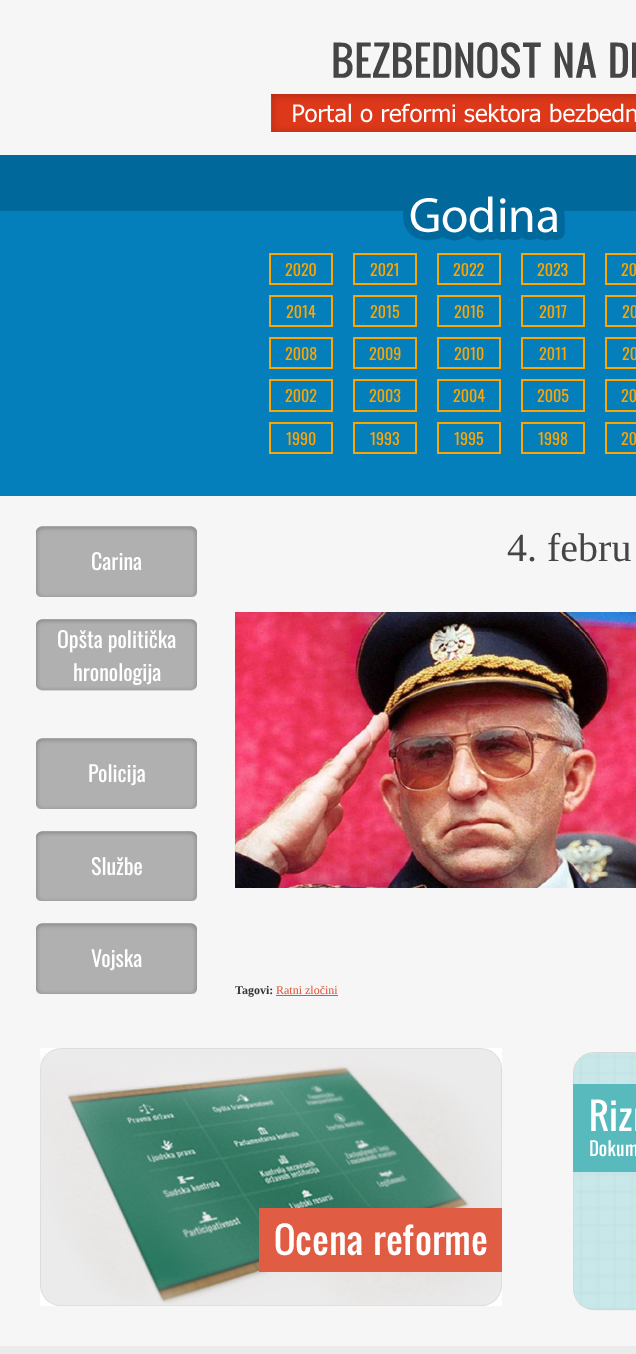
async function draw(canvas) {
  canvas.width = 636
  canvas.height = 1354
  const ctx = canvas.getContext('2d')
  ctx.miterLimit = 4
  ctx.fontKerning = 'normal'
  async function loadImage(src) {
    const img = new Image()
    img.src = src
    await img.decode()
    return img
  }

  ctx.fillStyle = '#f6f6f6'
  ctx.fillRect(0, 0, 636, 1354)
  ctx.drawImage(await loadImage('image0.png'), 271, 42, 365, 91)
  ctx.drawImage(await loadImage('image1.png'), 0, 154, 636, 342)
  ctx.drawImage(await loadImage('image2.png'), 403, 196, 162, 45)
  ctx.strokeStyle = '#ffa500'
  ctx.lineWidth = 2
  ctx.strokeRect(270, 254, 62, 30)
  ctx.font = '16px Oswald'
  ctx.fillStyle = '#ffa500'
  ctx.fillText('2020', 285, 276)
  ctx.strokeRect(354, 254, 62, 30)
  ctx.fillText('2021', 370, 276)
  ctx.strokeRect(438, 254, 62, 30)
  ctx.fillText('2022', 453, 276)
  ctx.strokeRect(522, 254, 62, 30)
  ctx.fillText('2023', 537, 276)
  ctx.strokeRect(606, 254, 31, 30)
  ctx.fillText('20', 621, 276)
  ctx.strokeRect(270, 296, 62, 30)
  ctx.fillText('2014', 286, 318)
  ctx.strokeRect(354, 296, 62, 30)
  ctx.fillText('2015', 370, 318)
  ctx.strokeRect(438, 296, 62, 30)
  ctx.fillText('2016', 454, 318)
  ctx.strokeRect(522, 296, 62, 30)
  ctx.fillText('2017', 539, 318)
  ctx.strokeRect(606, 296, 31, 30)
  ctx.fillText('20', 622, 318)
  ctx.strokeRect(270, 338, 62, 30)
  ctx.fillText('2008', 285, 360)
  ctx.strokeRect(354, 338, 62, 30)
  ctx.fillText('2009', 369, 360)
  ctx.strokeRect(438, 338, 62, 30)
  ctx.fillText('2010', 454, 360)
  ctx.strokeRect(522, 338, 62, 30)
  ctx.fillText('2011', 539, 360)
  ctx.strokeRect(606, 338, 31, 30)
  ctx.fillText('20', 622, 360)
  ctx.strokeRect(270, 380, 62, 31)
  ctx.fillText('2002', 285, 402)
  ctx.strokeRect(354, 380, 62, 31)
  ctx.fillText('2003', 369, 402)
  ctx.strokeRect(438, 380, 62, 31)
  ctx.fillText('2004', 453, 402)
  ctx.strokeRect(522, 380, 62, 31)
  ctx.fillText('2005', 537, 402)
  ctx.strokeRect(606, 380, 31, 31)
  ctx.fillText('20', 621, 402)
  ctx.strokeRect(270, 423, 62, 30)
  ctx.fillText('1990', 286, 445)
  ctx.strokeRect(354, 423, 62, 30)
  ctx.fillText('1993', 370, 445)
  ctx.strokeRect(438, 423, 62, 30)
  ctx.fillText('1995', 454, 445)
  ctx.strokeRect(522, 423, 62, 30)
  ctx.fillText('1998', 538, 445)
  ctx.strokeRect(606, 423, 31, 30)
  ctx.fillText('20', 621, 445)
  ctx.drawImage(await loadImage('image3.png'), 36, 526, 161, 71)
  ctx.font = '22px Oswald'
  ctx.fillStyle = '#fff'
  ctx.fillText('Carina', 91, 570)
  ctx.drawImage(await loadImage('image4.png'), 36, 619, 161, 72)
  ctx.fillText('Opšta politička', 57, 648)
  ctx.fillText('hronologija', 73, 681)
  ctx.drawImage(await loadImage('image3.png'), 36, 738, 161, 71)
  ctx.fillText('Policija', 88, 782)
  ctx.drawImage(await loadImage('image5.png'), 36, 831, 161, 70)
  ctx.fillText('Službe', 91, 875)
  ctx.drawImage(await loadImage('image3.png'), 36, 923, 161, 71)
  ctx.fillText('Vojska', 91, 967)
  ctx.font = '40px Liberation Serif'
  ctx.fillStyle = '#454545'
  ctx.fillText('4. febru', 507, 561)
  ctx.drawImage(await loadImage('image6.png'), 235, 612, 401, 276)
  ctx.font = 'bold 12px Liberation Serif'
  ctx.fillStyle = '#333'
  ctx.fillText('Tagovi:', 235, 994)
  ctx.font = '12px Liberation Serif'
  ctx.fillStyle = '#e05137'
  ctx.fillText('Ratni zločini', 276, 994)
  ctx.fillRect(276, 995, 62, 1)
  ctx.drawImage(await loadImage('image7.png'), 40, 1048, 462, 258)
  ctx.drawImage(await loadImage('image8.png'), 573, 1052, 63, 259)
  ctx.fillStyle = '#ebebeb'
  ctx.fillRect(0, 1346, 636, 8)
}

draw(document.querySelector('canvas'))
